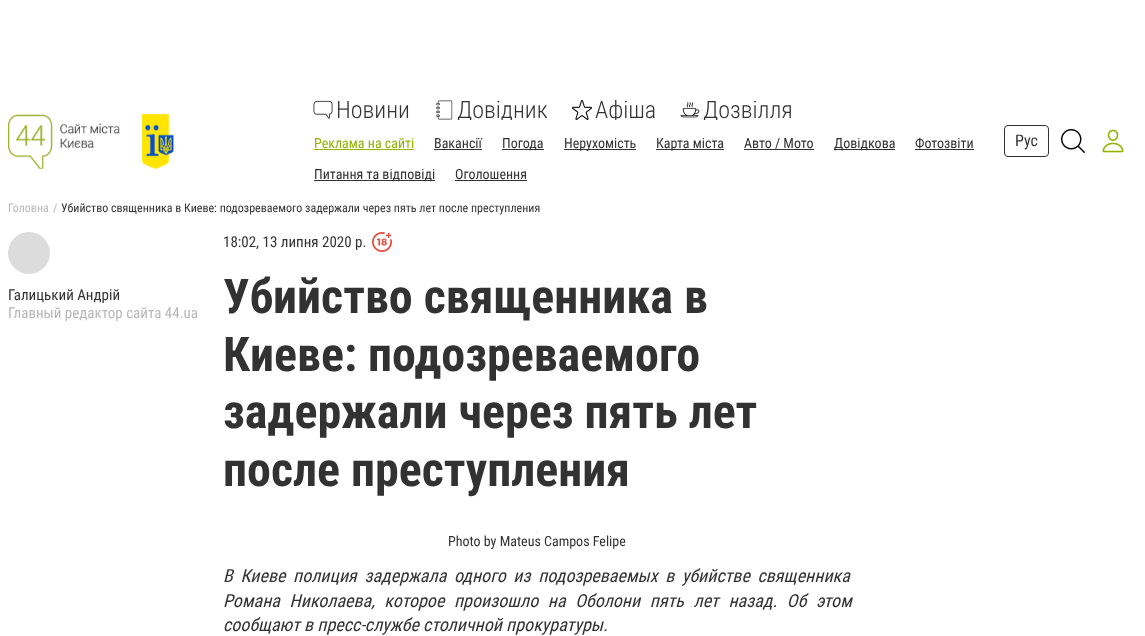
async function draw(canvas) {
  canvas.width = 1145
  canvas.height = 636
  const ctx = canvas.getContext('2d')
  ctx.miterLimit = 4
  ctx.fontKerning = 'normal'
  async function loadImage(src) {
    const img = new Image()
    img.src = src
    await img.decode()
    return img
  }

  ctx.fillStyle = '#fff'
  ctx.fillRect(0, 0, 1145, 636)
  ctx.drawImage(await loadImage('image0.png'), 8, 113, 166, 56)
  ctx.drawImage(await loadImage('image1.png'), 313, 100, 20, 19)
  ctx.font = '300 24px Roboto Condensed'
  ctx.fillStyle = '#323232'
  ctx.fillText('Новини', 336, 118)
  ctx.drawImage(await loadImage('image2.png'), 436, 100, 17, 20)
  ctx.save()
  ctx.beginPath()
  ctx.rect(434, 100, 114, 20)
  ctx.clip()
  ctx.fillText('Довідник', 457, 118)
  ctx.restore()
  ctx.drawImage(await loadImage('image3.png'), 572, 100, 20, 20)
  ctx.save()
  ctx.beginPath()
  ctx.rect(572, 100, 84, 20)
  ctx.clip()
  ctx.fillText('Афіша', 595, 118)
  ctx.restore()
  ctx.drawImage(await loadImage('image4.png'), 680, 102, 20, 16)
  ctx.save()
  ctx.beginPath()
  ctx.rect(680, 100, 112, 20)
  ctx.clip()
  ctx.fillText('Дозвілля', 703, 118)
  ctx.restore()
  ctx.font = '14px Roboto Condensed'
  ctx.fillStyle = '#90b400'
  ctx.fillText('Реклама на сайті', 314, 148)
  ctx.fillRect(314, 149, 100, 1)
  ctx.fillStyle = '#323232'
  ctx.fillText('Вакансії', 434, 148)
  ctx.fillRect(434, 149, 48, 1)
  ctx.fillRect(502, 149, 42, 1)
  ctx.fillText('Погода', 502, 148)
  ctx.fillRect(564, 149, 72, 1)
  ctx.fillText('Нерухомість', 564, 148)
  ctx.fillRect(656, 149, 68, 1)
  ctx.fillText('Карта міста', 656, 148)
  ctx.fillText('Авто / Мото', 744, 148)
  ctx.fillRect(744, 149, 70, 1)
  ctx.fillRect(834, 149, 61, 1)
  ctx.fillText('Довідкова', 834, 148)
  ctx.fillText('Фотозвіти', 915, 148)
  ctx.fillRect(915, 149, 59, 1)
  ctx.fillRect(314, 180, 121, 1)
  ctx.fillText('Питання та відповіді', 314, 179)
  ctx.fillText('Оголошення', 455, 179)
  ctx.fillRect(455, 180, 72, 1)
  ctx.beginPath()
  ctx.roundRect(1004.5, 125.5, 44, 31, 3.5)
  ctx.strokeStyle = '#323232'
  ctx.stroke()
  ctx.font = '16px Roboto Condensed'
  ctx.fillText('Рус', 1015, 146)
  ctx.drawImage(await loadImage('image5.png'), 1061, 129, 24, 24)
  ctx.drawImage(await loadImage('image6.png'), 1102, 129, 22, 24)
  ctx.font = '12px Roboto Condensed'
  ctx.fillStyle = '#b7b7b7'
  ctx.fillText('Головна', 8, 212)
  ctx.fillText('/', 53, 212)
  ctx.fillStyle = '#323232'
  ctx.fillText('Убийство священника в Киеве: подозреваемого задержали через пять лет после преступления', 61, 212)
  ctx.fillStyle = '#dcdcdc'
  ctx.beginPath()
  ctx.arc(29, 253, 21, 0, 2 * Math.PI)
  ctx.fill()
  ctx.font = '15px Roboto Condensed'
  ctx.fillStyle = '#323232'
  ctx.fillText('Галицький Андрій', 8, 300)
  ctx.fillStyle = '#b7b7b7'
  ctx.fillText('Главный редактор сайта 44.ua', 8, 318)
  ctx.fillStyle = '#323232'
  ctx.fillText('18:02, 13 липня 2020 р.', 223, 247)
  ctx.drawImage(await loadImage('image7.png'), 372, 232, 20, 20)
  ctx.font = 'bold 48px Roboto Condensed'
  ctx.fillText('Убийство священника в', 223, 313)
  ctx.fillText('Киеве: подозреваемого', 223, 371)
  ctx.fillText('задержали через пять лет', 223, 428)
  ctx.fillText('после преступления', 223, 486)
  ctx.fillStyle = '#dcdcdc'
  ctx.fillRect(536, 531, 1, 1)
  ctx.font = '14px Roboto Condensed'
  ctx.fillStyle = '#323232'
  ctx.fillText('Photo by Mateus Campos Felipe', 448, 546)
  ctx.wordSpacing = '3.5px'
  ctx.font = 'italic 18px Roboto Condensed'
  ctx.fillText('В Киеве полиция задержала одного из подозреваемых в убийстве священника', 223, 582)
  ctx.wordSpacing = '5.5px'
  ctx.fillText('Романа Николаева, которое произошло на Оболони пять лет назад. Об этом', 223, 607)
  ctx.wordSpacing = '0px'
  ctx.fillText('сообщают в пресс-службе столичной прокуратуры.', 223, 631)
}

draw(document.querySelector('canvas'))
